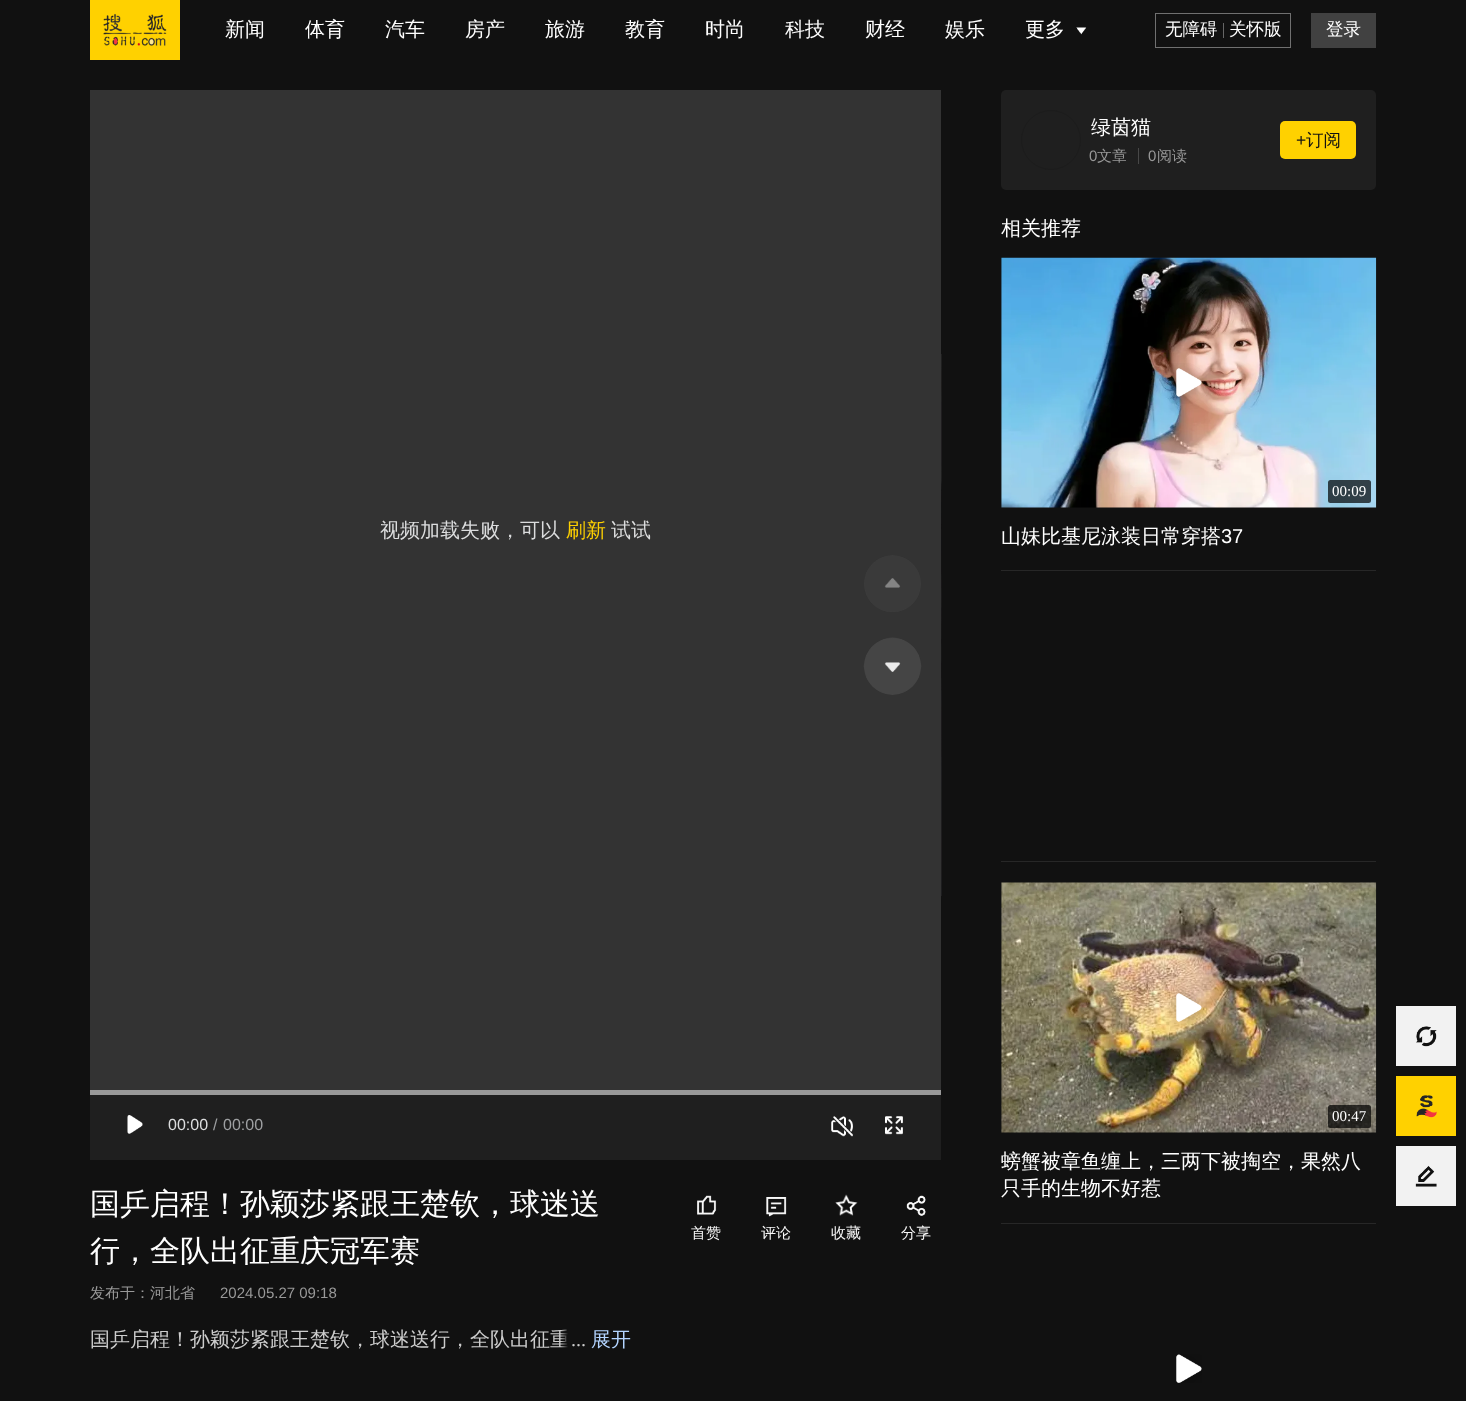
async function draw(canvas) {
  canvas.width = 1466
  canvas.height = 1401
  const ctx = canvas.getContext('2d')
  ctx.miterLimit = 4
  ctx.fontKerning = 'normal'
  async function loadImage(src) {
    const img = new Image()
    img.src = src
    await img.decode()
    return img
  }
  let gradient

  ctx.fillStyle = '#111'
  ctx.fillRect(0, 0, 1466, 1401)
  ctx.drawImage(await loadImage('image0.png'), 90, 0, 90, 60)
  ctx.font = '500 20px WenQuanYi Zen Hei'
  ctx.fillStyle = '#fff'
  ctx.fillText('新闻', 225, 36)
  ctx.fillText('体育', 305, 36)
  ctx.fillText('汽车', 385, 36)
  ctx.fillText('房产', 465, 36)
  ctx.fillText('旅游', 545, 36)
  ctx.fillText('教育', 625, 36)
  ctx.fillText('时尚', 705, 36)
  ctx.fillText('科技', 785, 36)
  ctx.fillText('财经', 865, 36)
  ctx.fillText('娱乐', 945, 36)
  ctx.fillText('更多', 1025, 36)
  ctx.drawImage(await loadImage('image1.png'), 1076, 27, 11, 8)
  ctx.strokeStyle = '#707070'
  ctx.strokeRect(1155.5, 13.5, 135, 34)
  ctx.font = '500 17.5px WenQuanYi Zen Hei'
  ctx.fillText('无障碍', 1165, 35)
  ctx.fillStyle = '#666'
  ctx.fillRect(1223, 23, 1, 15)
  ctx.fillStyle = '#fff'
  ctx.fillText('关怀版', 1229, 35)
  ctx.fillStyle = '#414141'
  ctx.fillRect(1311, 13, 65, 35)
  ctx.fillStyle = '#fff'
  ctx.fillText('登录', 1326, 35)
  ctx.fillStyle = '#333'
  ctx.fillRect(90, 90, 851, 1000)
  ctx.font = '500 20px WenQuanYi Zen Hei'
  ctx.fillStyle = '#dcddde'
  ctx.fillText('视频加载失败，可以', 380, 537)
  ctx.fillStyle = '#fdd000'
  ctx.fillText('刷新', 566, 537)
  ctx.fillStyle = '#dcddde'
  ctx.fillText('试试', 611, 537)
  ctx.drawImage(await loadImage('image2.png'), 941, 354, 1, 542)
  ctx.fillStyle = '#999'
  ctx.fillRect(90, 1090, 851, 5)
  ctx.fillStyle = '#1f1f1f'
  ctx.fillRect(90, 1095, 851, 65)
  ctx.drawImage(await loadImage('image3.png'), 127, 1115, 16, 19)
  ctx.font = '16px Liberation Sans'
  ctx.fillStyle = '#dcddde'
  ctx.fillText('00:00', 168, 1130)
  ctx.fillStyle = '#9ea0a2'
  ctx.fillText('/', 213, 1130)
  ctx.fillText('00:00', 223, 1130)
  ctx.drawImage(await loadImage('image4.png'), 831, 1116, 22, 21)
  ctx.drawImage(await loadImage('image5.png'), 885, 1116, 18, 19)
  ctx.drawImage(await loadImage('image6.png'), 864, 555, 57, 57)
  ctx.drawImage(await loadImage('image7.png'), 863, 637, 59, 58)
  ctx.font = '500 30px WenQuanYi Zen Hei'
  ctx.fillStyle = '#fff'
  ctx.fillText('国乒启程！孙颖莎紧跟王楚钦，球迷送', 90, 1214)
  ctx.fillText('行，全队出征重庆冠军赛', 90, 1261)
  ctx.font = '500 15px WenQuanYi Zen Hei'
  ctx.fillStyle = '#999'
  ctx.fillText('发布于：河北省', 90, 1298)
  ctx.font = '15px Liberation Sans'
  ctx.fillText('2024.05.27 09:18', 220, 1298)
  ctx.font = '500 20px WenQuanYi Zen Hei'
  ctx.fillStyle = '#ccc'
  ctx.fillText('国乒启程！孙颖莎紧跟王楚钦，球迷送行，全队出征重', 90, 1346)
  gradient = ctx.createLinearGradient(561, 1340, 631, 1340)
  gradient.addColorStop(0, '#11111100')
  gradient.addColorStop(0.1, '#111')
  ctx.fillStyle = gradient
  ctx.fillRect(561, 1329, 9, 19)
  ctx.font = '20px Liberation Serif'
  ctx.fillStyle = '#ccc'
  ctx.fillText('...', 571, 1346)
  ctx.font = '500 20px WenQuanYi Zen Hei'
  ctx.fillStyle = '#b3d4ff'
  ctx.fillText('展开', 591, 1346)
  ctx.drawImage(await loadImage('image8.png'), 697, 1195, 20, 20)
  ctx.font = '500 15px WenQuanYi Zen Hei'
  ctx.fillStyle = '#f8f8f8'
  ctx.fillText('首赞', 691, 1238)
  ctx.drawImage(await loadImage('image9.png'), 766, 1197, 21, 20)
  ctx.fillText('评论', 761, 1238)
  ctx.drawImage(await loadImage('image10.png'), 835, 1194, 23, 22)
  ctx.fillText('收藏', 831, 1238)
  ctx.drawImage(await loadImage('image11.png'), 906, 1195, 20, 21)
  ctx.fillText('分享', 901, 1238)
  ctx.fillStyle = '#1f1f1f'
  ctx.beginPath()
  ctx.roundRect(1001, 90, 375, 100, 5)
  ctx.fill()
  ctx.beginPath()
  ctx.arc(1051, 140, 29.5, 0, 2 * Math.PI)
  ctx.strokeStyle = '#1c1c1c'
  ctx.stroke()
  ctx.font = '500 20px WenQuanYi Zen Hei'
  ctx.fillStyle = '#fff'
  ctx.fillText('绿茵猫', 1091, 134)
  ctx.font = '15px Liberation Sans'
  ctx.fillStyle = '#999'
  ctx.fillText('0', 1089, 161)
  ctx.font = '500 15px WenQuanYi Zen Hei'
  ctx.fillText('文章', 1097, 161)
  ctx.fillStyle = '#484848'
  ctx.fillRect(1138, 148, 1, 16)
  ctx.font = '15px Liberation Sans'
  ctx.fillStyle = '#999'
  ctx.fillText('0', 1148, 161)
  ctx.font = '500 15px WenQuanYi Zen Hei'
  ctx.fillText('阅读', 1157, 161)
  ctx.fillStyle = '#ffd100'
  ctx.beginPath()
  ctx.roundRect(1280, 121, 76, 38, 5)
  ctx.fill()
  ctx.font = '17.5px Liberation Sans'
  ctx.fillStyle = '#111'
  ctx.fillText('+', 1296, 146)
  ctx.font = '500 17.5px WenQuanYi Zen Hei'
  ctx.fillText('订阅', 1306, 146)
  ctx.font = '500 20px WenQuanYi Zen Hei'
  ctx.fillStyle = '#fff'
  ctx.fillText('相关推荐', 1001, 235)
  ctx.drawImage(await loadImage('image12.png'), 1001, 257, 376, 251)
  ctx.drawImage(await loadImage('image13.png'), 1167, 363, 40, 41)
  ctx.fillStyle = '#000000b3'
  ctx.beginPath()
  ctx.roundRect(1328, 480, 43, 23, 2.5)
  ctx.fill()
  ctx.font = '15px Liberation Serif'
  ctx.fillStyle = '#fff'
  ctx.fillText('00:09', 1332, 496)
  ctx.font = '500 20px WenQuanYi Zen Hei'
  ctx.fillText('山妹比基尼泳装日常穿搭', 1001, 543)
  ctx.font = '20px Liberation Sans'
  ctx.fillText('37', 1221, 543)
  ctx.fillStyle = '#272727'
  ctx.fillRect(1001, 570, 375, 1)
  ctx.fillRect(1001, 861, 375, 1)
  ctx.drawImage(await loadImage('image14.png'), 1001, 882, 376, 251)
  ctx.drawImage(await loadImage('image15.png'), 1167, 988, 40, 41)
  ctx.fillStyle = '#000000b3'
  ctx.beginPath()
  ctx.roundRect(1328, 1105, 43, 23, 2.5)
  ctx.fill()
  ctx.font = '15px Liberation Serif'
  ctx.fillStyle = '#fff'
  ctx.fillText('00:47', 1332, 1121)
  ctx.font = '500 20px WenQuanYi Zen Hei'
  ctx.fillText('螃蟹被章鱼缠上，三两下被掏空，果然八', 1001, 1168)
  ctx.fillText('只手的生物不好惹', 1001, 1195)
  ctx.fillStyle = '#272727'
  ctx.fillRect(1001, 1223, 375, 1)
  ctx.drawImage(await loadImage('image16.png'), 1176, 1354, 26, 29)
  ctx.fillStyle = '#f2f2f2'
  ctx.fillRect(1396, 1006, 60, 60)
  ctx.drawImage(await loadImage('image17.png'), 1416, 1026, 21, 21)
  ctx.fillStyle = '#ffd100'
  ctx.fillRect(1396, 1076, 60, 60)
  ctx.drawImage(await loadImage('image18.png'), 1416, 1095, 21, 23)
  ctx.fillStyle = '#f2f2f2'
  ctx.fillRect(1396, 1146, 60, 60)
  ctx.drawImage(await loadImage('image19.png'), 1415, 1165, 22, 22)
}

draw(document.querySelector('canvas'))
